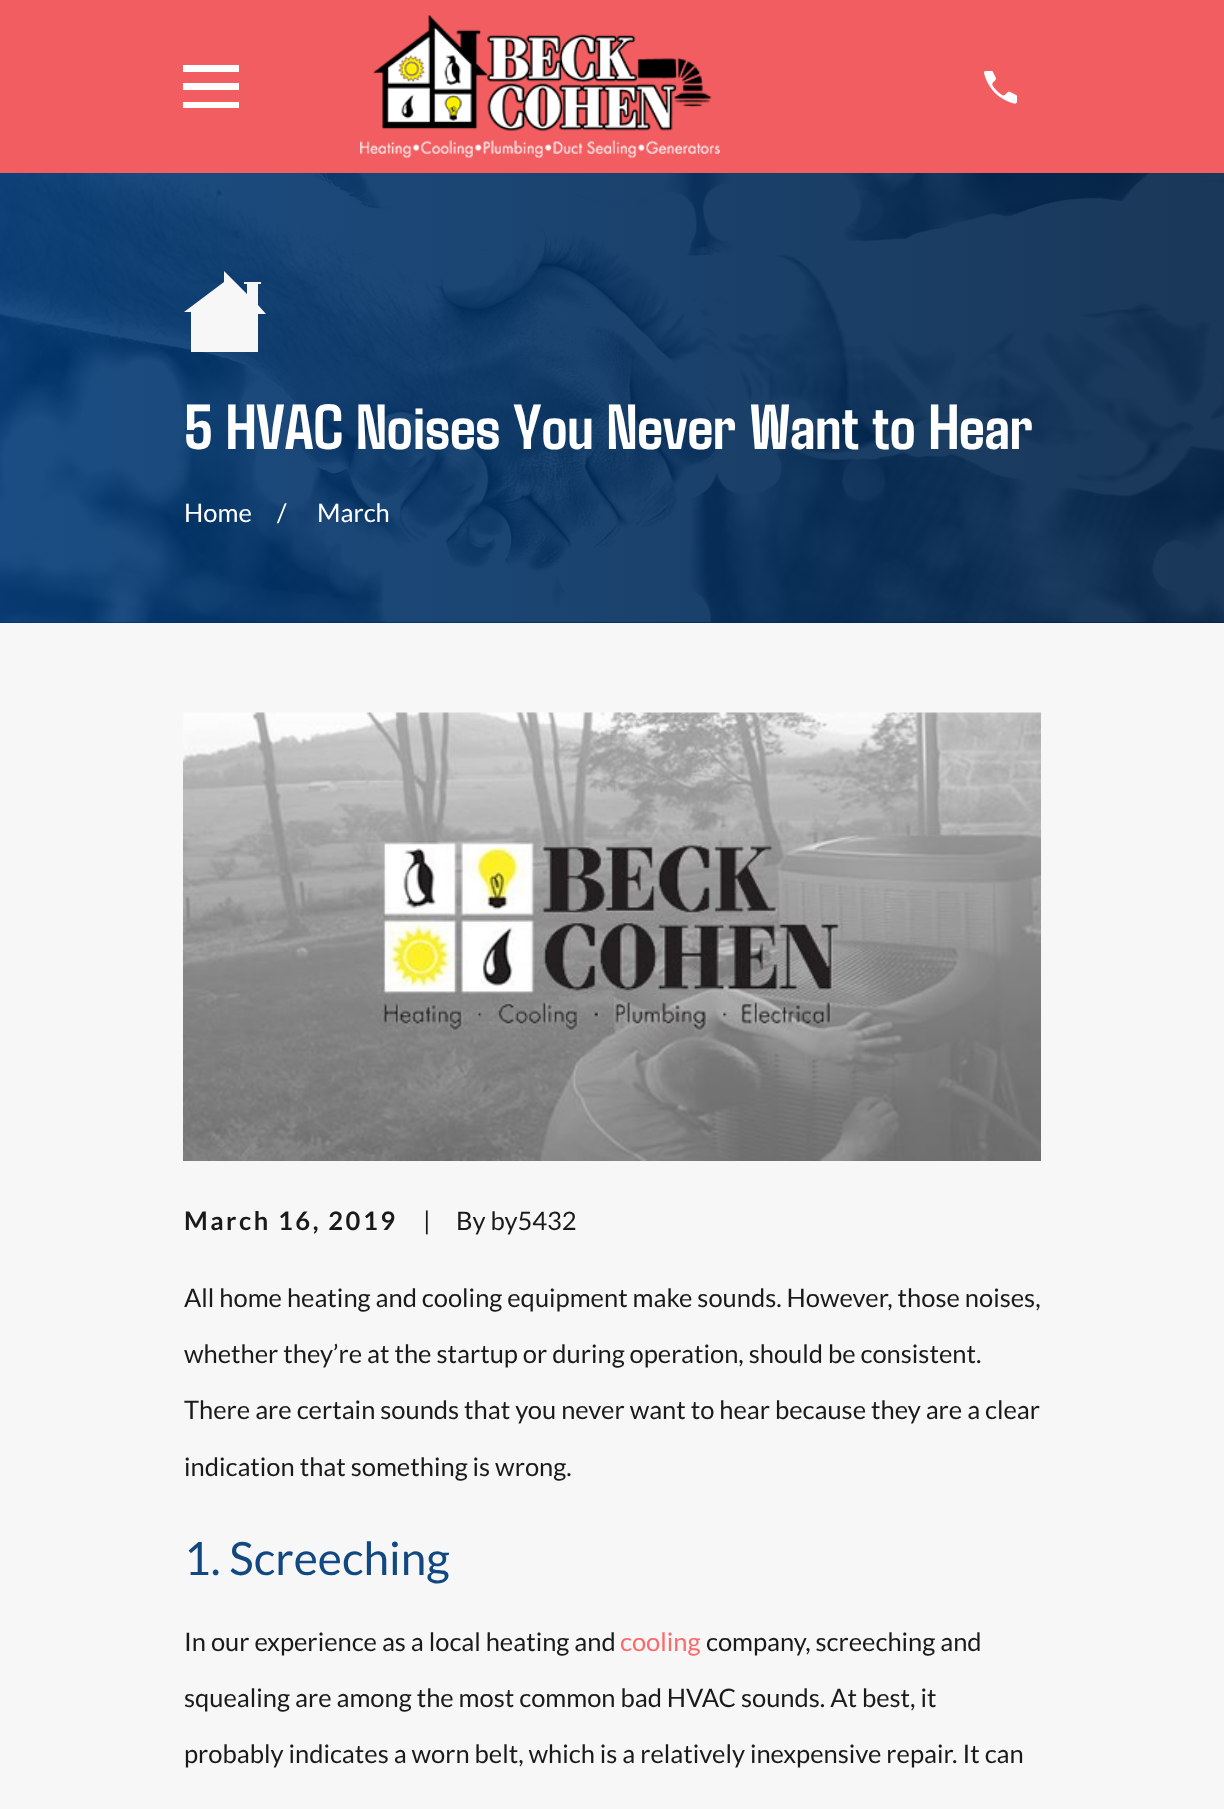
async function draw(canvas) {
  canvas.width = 1224
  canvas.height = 1809
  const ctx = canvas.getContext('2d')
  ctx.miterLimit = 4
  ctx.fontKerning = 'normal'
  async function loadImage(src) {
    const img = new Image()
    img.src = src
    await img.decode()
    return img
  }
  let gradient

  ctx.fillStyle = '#f7f7f7'
  ctx.fillRect(0, 0, 1224, 1809)
  ctx.fillStyle = '#f15d60'
  ctx.fillRect(0, 0, 1224, 173)
  ctx.fillStyle = '#fff'
  ctx.beginPath()
  ctx.moveTo(183, 65)
  ctx.lineTo(183, 72)
  ctx.lineTo(239, 72)
  ctx.lineTo(239, 65)
  ctx.closePath()
  ctx.moveTo(183, 83)
  ctx.lineTo(183, 90)
  ctx.lineTo(239, 90)
  ctx.lineTo(239, 83)
  ctx.closePath()
  ctx.moveTo(183, 102)
  ctx.lineTo(183, 108)
  ctx.lineTo(239, 108)
  ctx.lineTo(239, 102)
  ctx.closePath()
  ctx.fill()
  ctx.drawImage(await loadImage('image0.png'), 360, 15, 360, 143)
  ctx.drawImage(await loadImage('image1.png'), 984, 71, 33, 33)
  ctx.fillStyle = '#012246'
  ctx.fillRect(0, 622, 1224, 1)
  ctx.drawImage(await loadImage('image2.png'), 0, 173, 1224, 450)
  gradient = ctx.createLinearGradient(1224, 398, 0, 398)
  gradient.addColorStop(0, '#012246e6')
  gradient.addColorStop(1, '#023a76e6')
  ctx.fillStyle = gradient
  ctx.fillRect(0, 173, 1224, 450)
  ctx.fillStyle = '#f7f7f7'
  ctx.beginPath()
  ctx.moveTo(224, 271)
  ctx.lineTo(224, 282)
  ctx.lineTo(184, 312)
  ctx.lineTo(191, 312)
  ctx.lineTo(191, 352)
  ctx.lineTo(258, 352)
  ctx.lineTo(258, 314)
  ctx.lineTo(266, 314)
  ctx.lineTo(258, 305)
  ctx.lineTo(258, 284)
  ctx.lineTo(261, 284)
  ctx.lineTo(261, 282)
  ctx.lineTo(244, 282)
  ctx.lineTo(244, 284)
  ctx.lineTo(247, 284)
  ctx.lineTo(247, 294)
  ctx.closePath()
  ctx.fill()
  ctx.font = 'bold 63.75px Agdasima'
  ctx.fillStyle = '#fff'
  ctx.fillText('5 HVAC Noises You Never Want to Hear', 184, 449)
  ctx.font = '25.5px Lato'
  ctx.fillText('Home', 184, 522)
  ctx.fillText('/', 277, 522)
  ctx.fillText('March', 317, 522)
  ctx.drawImage(await loadImage('image3.png'), 183, 712, 858, 449)
  ctx.letterSpacing = '2.5px'
  ctx.font = 'bold 25.5px Lato'
  ctx.fillStyle = '#1a1a1a'
  ctx.fillText('March 16, 2019', 184, 1230)
  ctx.letterSpacing = '0px'
  ctx.font = '25.5px Lato'
  ctx.fillText('|', 423, 1230)
  ctx.fillText('By by5432', 456, 1230)
  ctx.fillText('All home heating and cooling equipment make sounds. However, those noises,', 184, 1307)
  ctx.fillText('whether they’re at the startup or during operation, should be consistent.', 184, 1363)
  ctx.fillText('There are certain sounds that you never want to hear because they are a clear', 184, 1419)
  ctx.fillText('indication that something is wrong.', 184, 1476)
  ctx.font = '46px Lato'
  ctx.fillStyle = '#114881'
  ctx.fillText('1. Screeching', 184, 1575)
  ctx.font = '25.5px Lato'
  ctx.fillStyle = '#1a1a1a'
  ctx.fillText('In our experience as a local heating and', 184, 1651)
  ctx.fillStyle = '#fb6a6a'
  ctx.fillText('cooling', 620, 1651)
  ctx.fillStyle = '#1a1a1a'
  ctx.fillText('company, screeching and', 706, 1651)
  ctx.fillText('squealing are among the most common bad HVAC sounds. At best, it', 184, 1707)
  ctx.fillText('probably indicates a worn belt, which is a relatively inexpensive repair. It can', 184, 1763)
}

draw(document.querySelector('canvas'))
